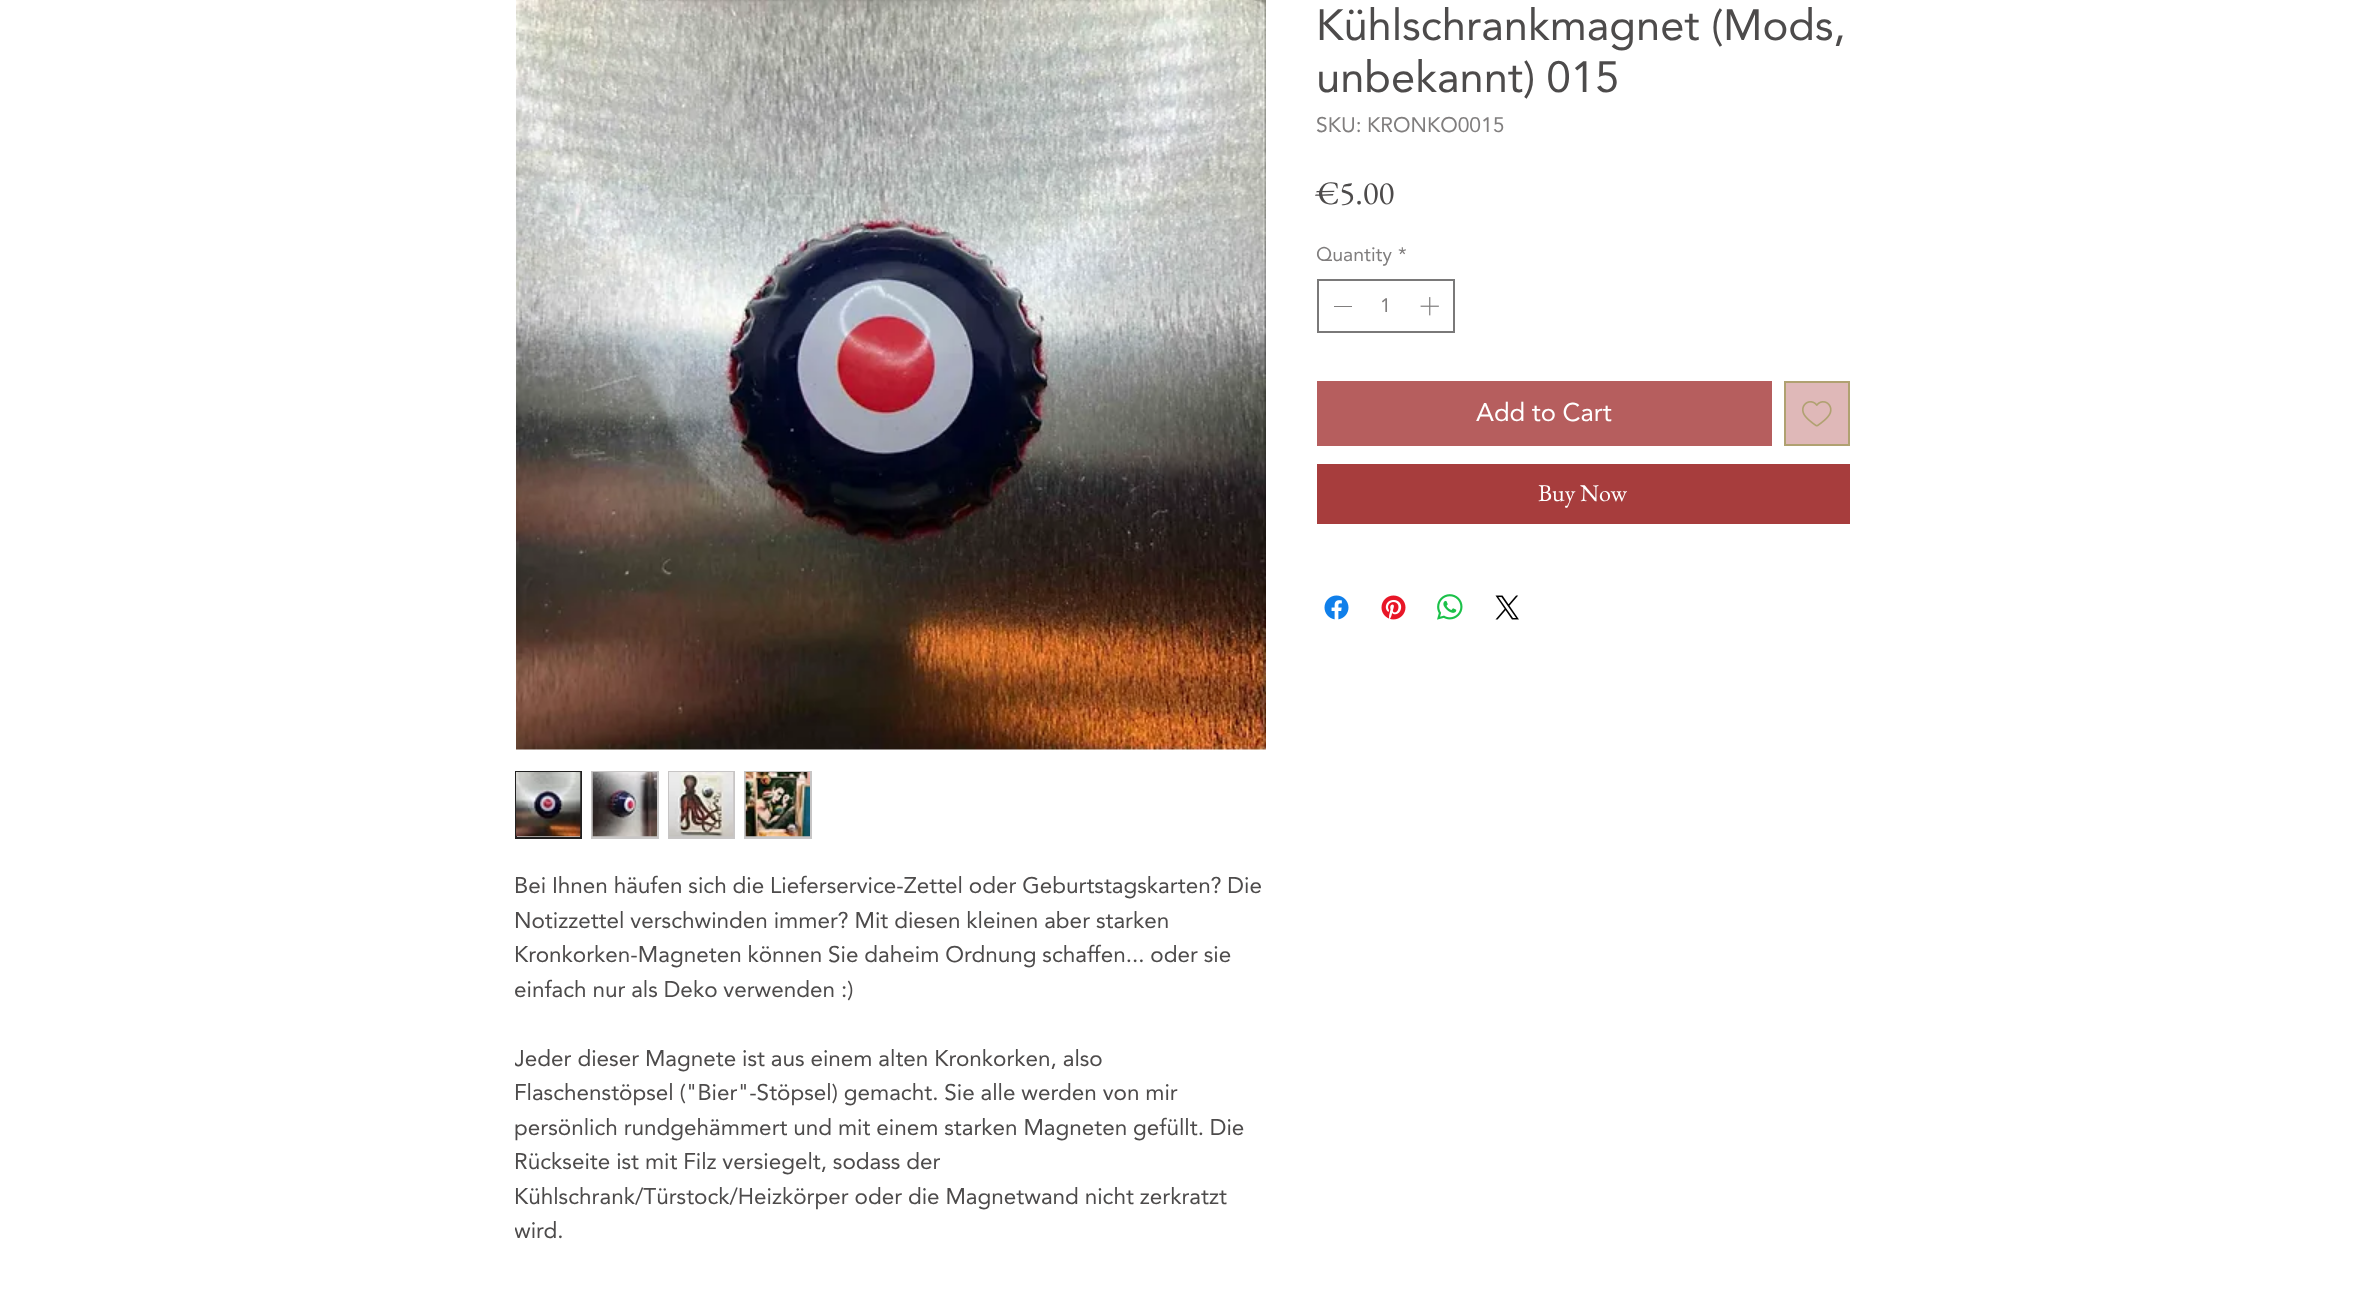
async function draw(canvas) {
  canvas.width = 2362
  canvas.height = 1289
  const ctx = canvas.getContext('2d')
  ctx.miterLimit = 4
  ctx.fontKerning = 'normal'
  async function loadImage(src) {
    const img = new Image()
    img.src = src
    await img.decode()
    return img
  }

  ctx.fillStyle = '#fff'
  ctx.fillRect(0, 0, 2362, 1289)
  ctx.font = '43.5px "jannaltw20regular"'
  ctx.fillStyle = '#4d4b4b'
  ctx.fillText('Kühlschrankmagnet (Mods,', 1316, 40)
  ctx.fillText('unbekannt) 015', 1316, 92)
  ctx.font = '21px "jannaltw20regular"'
  ctx.fillStyle = '#807e7e'
  ctx.fillText('SKU: KRONKO0015', 1316, 132)
  ctx.font = '33px EB Garamond'
  ctx.fillStyle = '#4d4b4b'
  ctx.fillText('€5.00', 1316, 204)
  ctx.font = '19.5px "jannaltw20regular"'
  ctx.fillStyle = '#807e7e'
  ctx.fillText('Quantity', 1316, 261)
  ctx.fillText('*', 1398, 261)
  ctx.strokeStyle = '#7a7979'
  ctx.lineWidth = 2
  ctx.strokeRect(1318, 280, 136, 52)
  ctx.fillRect(1334, 306, 18, 1)
  ctx.fillText('1', 1380, 312)
  ctx.drawImage(await loadImage('image0.png'), 1420, 297, 19, 19)
  ctx.fillStyle = '#b65e5e'
  ctx.fillRect(1317, 381, 455, 65)
  ctx.font = '25.5px "jannaltw20regular"'
  ctx.fillStyle = '#fff'
  ctx.fillText('Add to Cart', 1476, 421)
  ctx.fillStyle = '#dfb8b8'
  ctx.beginPath()
  ctx.rect(1785, 382, 64, 63)
  ctx.fill()
  ctx.strokeStyle = '#b0a171'
  ctx.stroke()
  ctx.drawImage(await loadImage('image1.png'), 1802, 401, 30, 26)
  ctx.fillStyle = '#a73d3d'
  ctx.fillRect(1317, 464, 533, 60)
  ctx.font = '24px EB Garamond'
  ctx.fillStyle = '#fff'
  ctx.fillText('Buy Now', 1538, 501)
  ctx.drawImage(await loadImage('image2.png'), 1324, 595, 25, 25)
  ctx.drawImage(await loadImage('image3.png'), 1381, 595, 25, 25)
  ctx.drawImage(await loadImage('image4.png'), 1437, 594, 26, 26)
  ctx.drawImage(await loadImage('image5.png'), 1495, 595, 24, 25)
  ctx.drawImage(await loadImage('image6.png'), 516, 0, 750, 750)
  ctx.fillStyle = '#c7c5c5'
  ctx.fillRect(517, 836, 63, 1)
  ctx.strokeStyle = '#212020'
  ctx.strokeRect(516, 772, 65, 66)
  ctx.drawImage(await loadImage('image7.png'), 516, 772, 65, 65)
  ctx.fillRect(591, 771, 68, 68)
  ctx.drawImage(await loadImage('image8.png'), 592, 772, 65, 65)
  ctx.fillRect(668, 771, 67, 68)
  ctx.drawImage(await loadImage('image9.png'), 669, 772, 65, 65)
  ctx.fillRect(744, 771, 68, 68)
  ctx.drawImage(await loadImage('image10.png'), 745, 772, 65, 65)
  ctx.font = '22.5px "jannaltw20regular"'
  ctx.fillStyle = '#4d4b4b'
  ctx.fillText('Bei Ihnen häufen sich die Lieferservice-Zettel oder Geburtstagskarten? Die', 514, 893)
  ctx.fillText('Notizzettel verschwinden immer? Mit diesen kleinen aber starken', 514, 928)
  ctx.fillText('Kronkorken-Magneten können Sie daheim Ordnung schaffen... oder sie', 514, 962)
  ctx.save()
  ctx.beginPath()
  ctx.rect(515, 869, 750, 379)
  ctx.clip()
  ctx.fillText('einfach nur als Deko verwenden :)', 514, 997)
  ctx.fillText('Jeder dieser Magnete ist aus einem alten Kronkorken, also', 514, 1066)
  ctx.restore()
  ctx.fillText('Flaschenstöpsel ("Bier"-Stöpsel) gemacht. Sie alle werden von mir', 514, 1100)
  ctx.fillText('persönlich rundgehämmert und mit einem starken Magneten gefüllt. Die', 514, 1135)
  ctx.fillText('Rückseite ist mit Filz versiegelt, sodass der', 514, 1169)
  ctx.fillText('Kühlschrank/Türstock/Heizkörper oder die Magnetwand nicht zerkratzt', 514, 1204)
  ctx.save()
  ctx.beginPath()
  ctx.rect(515, 869, 750, 379)
  ctx.clip()
  ctx.fillText('wird.', 514, 1238)
  ctx.restore()
}

draw(document.querySelector('canvas'))
